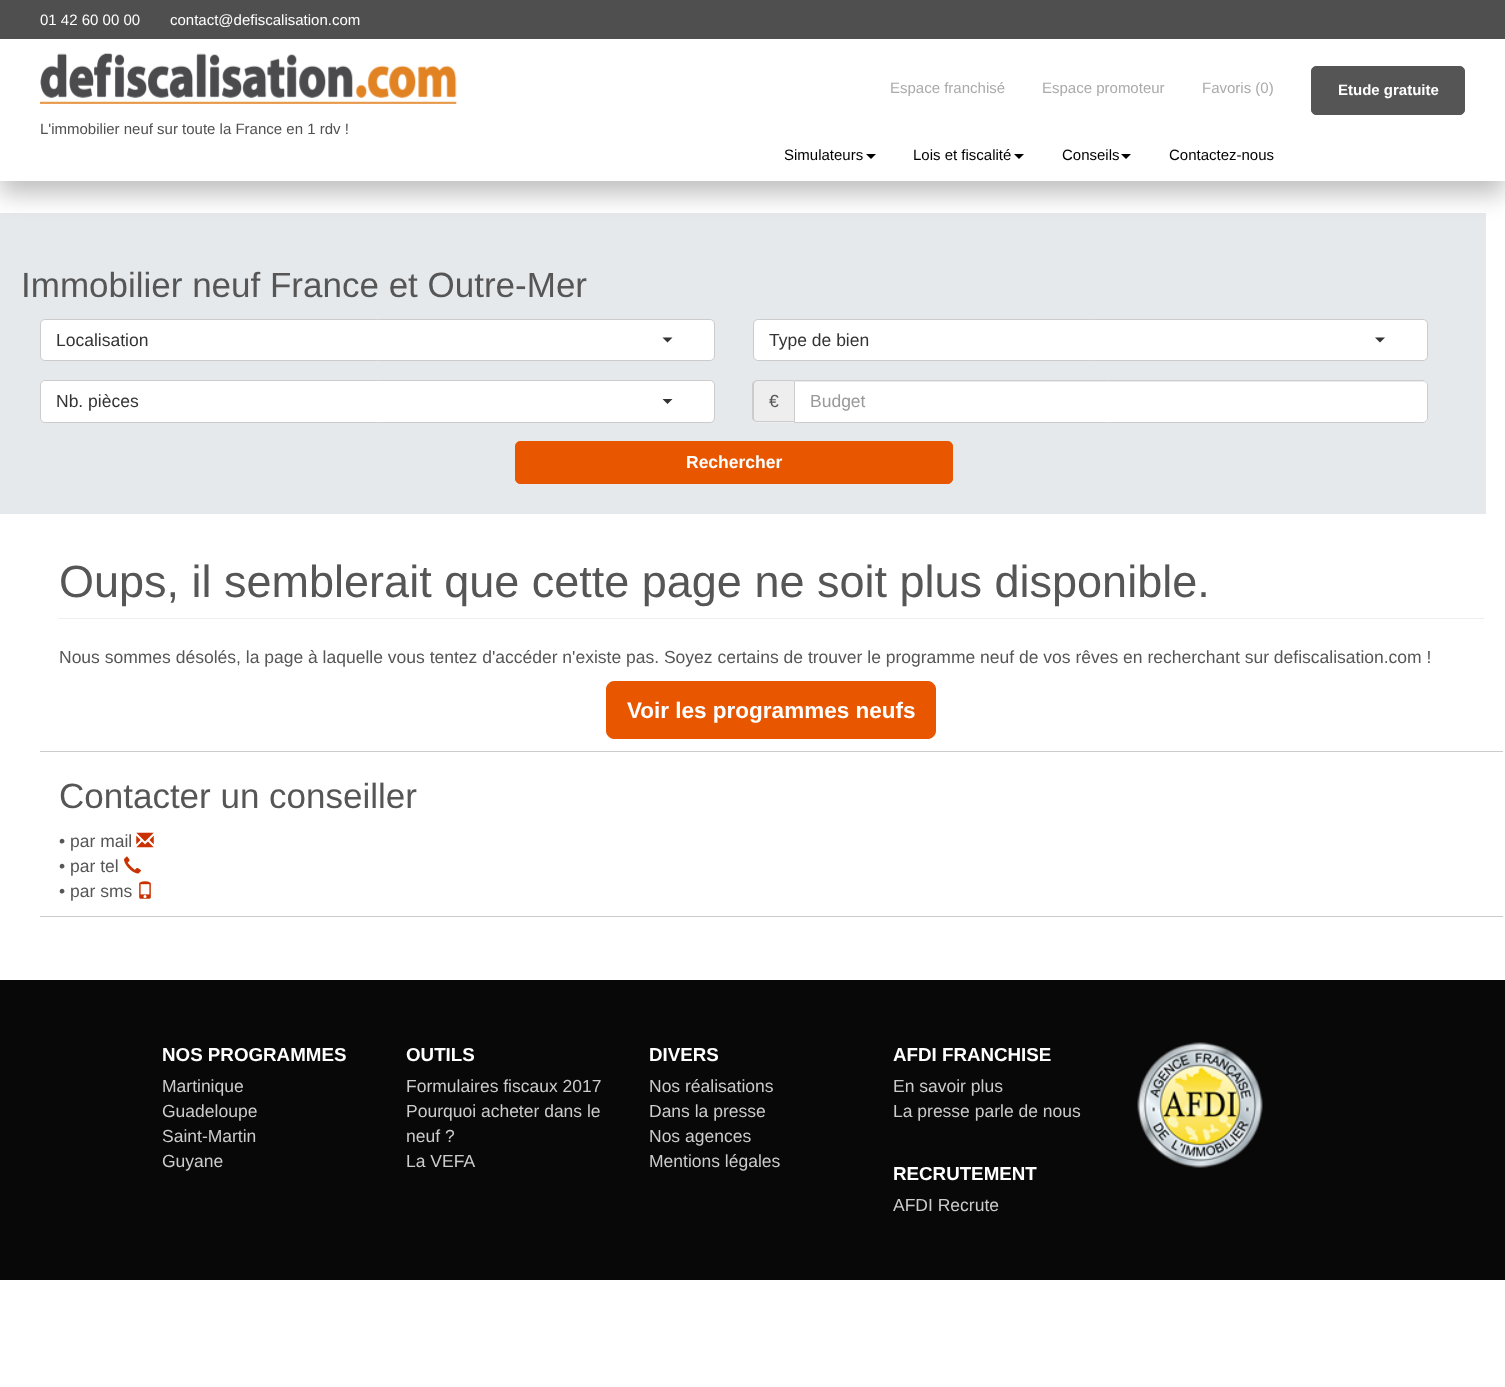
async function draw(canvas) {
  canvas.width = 1505
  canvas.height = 1387
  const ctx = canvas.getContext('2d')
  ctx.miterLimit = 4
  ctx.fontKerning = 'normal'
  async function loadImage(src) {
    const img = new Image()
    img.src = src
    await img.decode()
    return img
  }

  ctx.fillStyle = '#fff'
  ctx.fillRect(0, 0, 1505, 1387)
  ctx.fillStyle = '#e5e9ec'
  ctx.fillRect(0, 213, 1486, 301)
  ctx.fillStyle = '#00000040'
  ctx.filter = 'blur(12.5px)'
  ctx.beginPath()
  ctx.rect(0, 13, 1505, 181)
  ctx.fill()
  ctx.filter = 'none'
  ctx.fillStyle = '#fff'
  ctx.fillRect(0, 39, 1505, 142)
  ctx.fillStyle = '#4f4f4f'
  ctx.fillRect(0, 0, 1505, 39)
  ctx.font = '15px Liberation Sans'
  ctx.fillStyle = '#fff'
  ctx.fillText('01 42 60 00 00', 40, 25)
  ctx.fillText('contact@defiscalisation.com', 170, 25)
  ctx.drawImage(await loadImage('image0.png'), 40, 53, 417, 51)
  ctx.fillStyle = '#505050'
  ctx.fillText('L\'immobilier neuf sur toute la France en 1 rdv !', 40, 134)
  ctx.fillStyle = '#aaa'
  ctx.fillText('Espace franchisé', 890, 93)
  ctx.fillText('Espace promoteur', 1042, 93)
  ctx.fillText('Favoris (0)', 1202, 93)
  ctx.fillStyle = '#555'
  ctx.beginPath()
  ctx.roundRect(1311.5, 66.5, 153, 48, 4.5)
  ctx.fill()
  ctx.strokeStyle = '#555'
  ctx.stroke()
  ctx.font = 'bold 15px Liberation Sans'
  ctx.fillStyle = '#fff'
  ctx.fillText('Etude gratuite', 1338, 95)
  ctx.font = '15px Liberation Sans'
  ctx.fillStyle = '#000'
  ctx.fillText('Simulateurs', 784, 160)
  ctx.beginPath()
  ctx.moveTo(866, 154)
  ctx.lineTo(876, 154)
  ctx.lineTo(871, 159)
  ctx.closePath()
  ctx.fill()
  ctx.fillText('Lois et fiscalité', 913, 160)
  ctx.beginPath()
  ctx.moveTo(1014, 154)
  ctx.lineTo(1024, 154)
  ctx.lineTo(1019, 159)
  ctx.closePath()
  ctx.fill()
  ctx.fillText('Conseils', 1062, 160)
  ctx.beginPath()
  ctx.moveTo(1121, 154)
  ctx.lineTo(1131, 154)
  ctx.lineTo(1126, 159)
  ctx.closePath()
  ctx.fill()
  ctx.fillText('Contactez-nous', 1169, 160)
  ctx.font = '35px Liberation Sans'
  ctx.fillStyle = '#575656'
  ctx.fillText('Immobilier neuf France et Outre-Mer', 21, 297)
  ctx.fillStyle = '#fff'
  ctx.beginPath()
  ctx.roundRect(40.5, 319.5, 674, 41, 4.5)
  ctx.fill()
  ctx.strokeStyle = '#ccc'
  ctx.stroke()
  ctx.font = '17.5px Liberation Sans'
  ctx.fillStyle = '#333'
  ctx.fillText('Localisation', 56, 346)
  ctx.beginPath()
  ctx.moveTo(662.5, 337.5)
  ctx.lineTo(672.5, 337.5)
  ctx.lineTo(667.5, 342.5)
  ctx.closePath()
  ctx.fill()
  ctx.fillStyle = '#fff'
  ctx.beginPath()
  ctx.roundRect(753.5, 319.5, 674, 41, 4.5)
  ctx.fill()
  ctx.stroke()
  ctx.fillStyle = '#333'
  ctx.fillText('Type de bien', 769, 346)
  ctx.beginPath()
  ctx.moveTo(1375, 337.5)
  ctx.lineTo(1385, 337.5)
  ctx.lineTo(1380, 342.5)
  ctx.closePath()
  ctx.fill()
  ctx.fillStyle = '#fff'
  ctx.beginPath()
  ctx.roundRect(40.5, 380.5, 674, 42, 4.5)
  ctx.fill()
  ctx.stroke()
  ctx.fillStyle = '#333'
  ctx.fillText('Nb. pièces', 56, 407)
  ctx.beginPath()
  ctx.moveTo(662.5, 399)
  ctx.lineTo(672.5, 399)
  ctx.lineTo(667.5, 404)
  ctx.closePath()
  ctx.fill()
  ctx.fillStyle = '#eee'
  ctx.beginPath()
  ctx.roundRect(753, 380, 41, 43, [5, 0, 0, 5])
  ctx.fill()
  ctx.fillStyle = '#ccc'
  ctx.beginPath()
  ctx.moveTo(758, 380)
  ctx.lineTo(794, 380)
  ctx.lineTo(794, 422)
  ctx.lineTo(758, 422)
  ctx.bezierCurveTo(755, 422, 752, 420, 752, 418)
  ctx.lineTo(752, 385)
  ctx.bezierCurveTo(752, 382, 755, 380, 758, 380)
  ctx.closePath()
  ctx.moveTo(758, 381)
  ctx.lineTo(794, 381)
  ctx.lineTo(794, 421)
  ctx.lineTo(758, 421)
  ctx.bezierCurveTo(755, 421, 754, 420, 754, 418)
  ctx.lineTo(754, 385)
  ctx.bezierCurveTo(754, 383, 755, 381, 758, 381)
  ctx.closePath()
  ctx.fill('evenodd')
  ctx.fillStyle = '#575656'
  ctx.fillText('€', 769, 407)
  ctx.fillStyle = '#fff'
  ctx.beginPath()
  ctx.roundRect(794, 380, 634, 43, [0, 5, 5, 0])
  ctx.fill()
  ctx.fillStyle = '#ececec'
  ctx.beginPath()
  ctx.moveTo(795, 382)
  ctx.lineTo(1422, 382)
  ctx.bezierCurveTo(1425, 382, 1426, 384, 1426, 386)
  ctx.bezierCurveTo(1426, 383, 1425, 381, 1422, 381)
  ctx.lineTo(795, 381)
  ctx.closePath()
  ctx.fill()
  ctx.beginPath()
  ctx.roundRect(794.5, 380.5, 633, 42, [0, 4.5, 4.5, 0])
  ctx.stroke()
  ctx.fillStyle = '#999'
  ctx.fillText('Budget', 810, 407)
  ctx.fillStyle = '#e85700'
  ctx.beginPath()
  ctx.roundRect(515.5, 441.5, 437, 42, 4.5)
  ctx.fill()
  ctx.strokeStyle = '#e85700'
  ctx.stroke()
  ctx.font = 'bold 17.5px Liberation Sans'
  ctx.fillStyle = '#fff'
  ctx.fillText('Rechercher', 686, 468)
  ctx.fillStyle = '#eee'
  ctx.fillRect(59, 618, 1425, 1)
  ctx.font = '45px Liberation Sans'
  ctx.fillStyle = '#575656'
  ctx.fillText('Oups, il semblerait que cette page ne soit plus disponible.', 59, 597)
  ctx.font = '17.5px Liberation Sans'
  ctx.fillText('Nous sommes désolés, la page à laquelle vous tentez d\'accéder n\'existe pas. Soyez certains de trouver le programme neuf de vos rêves en recherchant sur defiscalisation.com !', 59, 663)
  ctx.fillStyle = '#e85700'
  ctx.beginPath()
  ctx.roundRect(606.5, 681.5, 329, 57, 7.5)
  ctx.fill()
  ctx.stroke()
  ctx.font = 'bold 22.5px Liberation Sans'
  ctx.fillStyle = '#fff'
  ctx.fillText('Voir les programmes neufs', 627, 718)
  ctx.fillStyle = '#ccc'
  ctx.fillRect(40, 751, 1463, 1)
  ctx.fillRect(40, 916, 1463, 1)
  ctx.font = '35px Liberation Sans'
  ctx.fillStyle = '#575656'
  ctx.fillText('Contacter un conseiller', 59, 808)
  ctx.font = '17.5px Liberation Sans'
  ctx.fillText('• par mail', 59, 847)
  ctx.drawImage(await loadImage('image1.png'), 136, 832, 18, 16)
  ctx.fillText('• par tel', 59, 872)
  ctx.drawImage(await loadImage('image2.png'), 124, 856, 17, 18)
  ctx.fillText('• par sms', 59, 897)
  ctx.drawImage(await loadImage('image3.png'), 139, 881, 12, 18)
  ctx.fillStyle = '#080808'
  ctx.fillRect(0, 980, 1505, 300)
  ctx.font = 'bold 18.75px Liberation Sans'
  ctx.fillStyle = '#fff'
  ctx.fillText('NOS PROGRAMMES', 162, 1061)
  ctx.font = '17.5px Liberation Sans'
  ctx.fillStyle = '#ccc'
  ctx.fillText('Martinique', 162, 1092)
  ctx.fillText('Guadeloupe', 162, 1117)
  ctx.fillText('Saint-Martin', 162, 1142)
  ctx.fillText('Guyane', 162, 1167)
  ctx.font = 'bold 18.75px Liberation Sans'
  ctx.fillStyle = '#fff'
  ctx.fillText('OUTILS', 406, 1061)
  ctx.font = '17.5px Liberation Sans'
  ctx.fillStyle = '#ccc'
  ctx.fillText('Formulaires fiscaux 2017', 406, 1092)
  ctx.fillText('Pourquoi acheter dans le', 406, 1117)
  ctx.fillText('neuf ?', 406, 1142)
  ctx.fillText('La VEFA', 406, 1167)
  ctx.font = 'bold 18.75px Liberation Sans'
  ctx.fillStyle = '#fff'
  ctx.fillText('DIVERS', 649, 1061)
  ctx.font = '17.5px Liberation Sans'
  ctx.fillStyle = '#ccc'
  ctx.fillText('Nos réalisations', 649, 1092)
  ctx.fillText('Dans la presse', 649, 1117)
  ctx.fillText('Nos agences', 649, 1142)
  ctx.fillText('Mentions légales', 649, 1167)
  ctx.font = 'bold 18.75px Liberation Sans'
  ctx.fillStyle = '#fff'
  ctx.fillText('AFDI FRANCHISE', 893, 1061)
  ctx.font = '17.5px Liberation Sans'
  ctx.fillStyle = '#ccc'
  ctx.fillText('En savoir plus', 893, 1092)
  ctx.fillText('La presse parle de nous', 893, 1117)
  ctx.font = 'bold 18.75px Liberation Sans'
  ctx.fillStyle = '#fff'
  ctx.fillText('RECRUTEMENT', 893, 1180)
  ctx.font = '17.5px Liberation Sans'
  ctx.fillStyle = '#ccc'
  ctx.fillText('AFDI Recrute', 893, 1211)
  ctx.drawImage(await loadImage('image4.png'), 1137, 1042, 126, 126)
}

draw(document.querySelector('canvas'))
